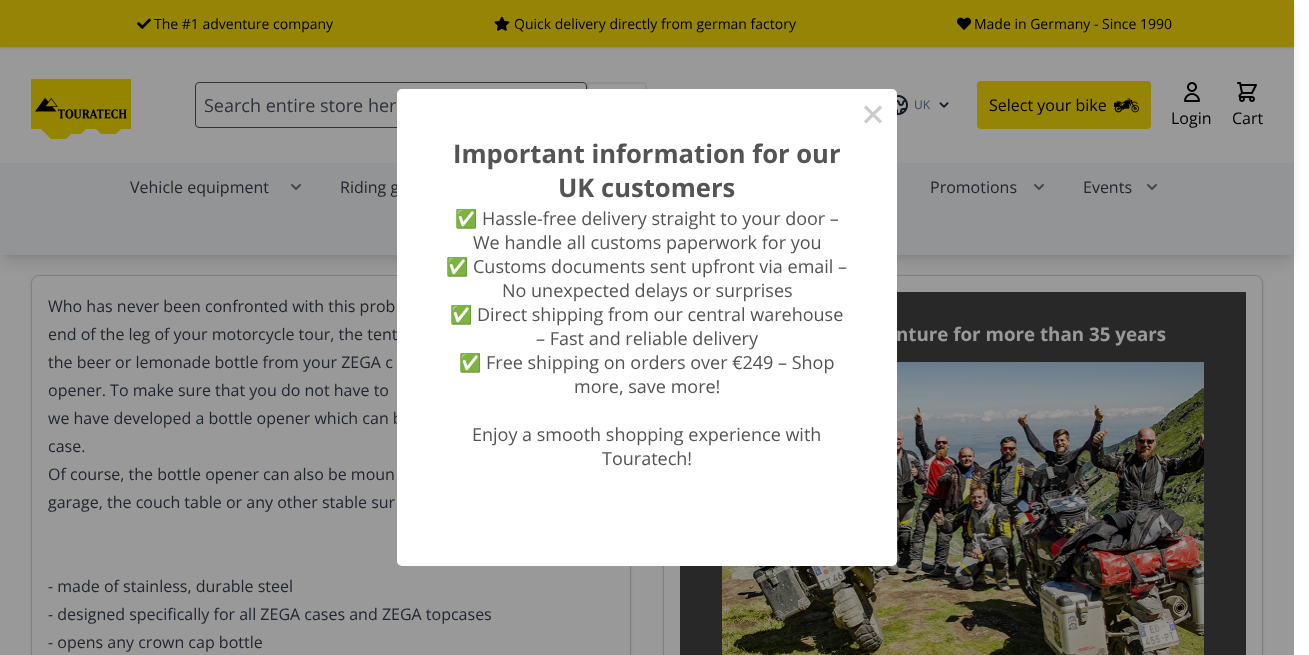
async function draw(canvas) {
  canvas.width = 1309
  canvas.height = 655
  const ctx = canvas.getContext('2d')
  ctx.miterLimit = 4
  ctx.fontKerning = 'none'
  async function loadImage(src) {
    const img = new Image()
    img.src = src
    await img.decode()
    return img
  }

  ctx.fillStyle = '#fff'
  ctx.fillRect(0, 0, 1309, 655)
  ctx.fillStyle = '#0000001a'
  ctx.filter = 'blur(3px)'
  ctx.beginPath()
  ctx.rect(4, 7, 1286, 248)
  ctx.fill()
  ctx.filter = 'none'
  ctx.filter = 'blur(1.5px)'
  ctx.beginPath()
  ctx.roundRect(31, 276, 600, 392, 8)
  ctx.fill()
  ctx.filter = 'none'
  ctx.fillStyle = '#fff'
  ctx.beginPath()
  ctx.roundRect(31.5, 275.5, 599, 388, 7.5)
  ctx.fill()
  ctx.strokeStyle = '#d1d5db'
  ctx.stroke()
  ctx.fillStyle = '#0000001a'
  ctx.filter = 'blur(1.5px)'
  ctx.beginPath()
  ctx.roundRect(663, 276, 600, 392, 8)
  ctx.fill()
  ctx.filter = 'none'
  ctx.fillStyle = '#fff'
  ctx.beginPath()
  ctx.roundRect(663.5, 275.5, 599, 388, 7.5)
  ctx.fill()
  ctx.stroke()
  ctx.fillStyle = '#0000001a'
  ctx.filter = 'blur(7.5px)'
  ctx.beginPath()
  ctx.rect(3, 12, 1288, 250)
  ctx.fill()
  ctx.filter = 'none'
  ctx.fillStyle = '#fff'
  ctx.fillRect(0, 47, 1294, 116)
  ctx.fillStyle = '#0000001a'
  ctx.filter = 'blur(1px)'
  ctx.beginPath()
  ctx.rect(1, 1, 1292, 46)
  ctx.fill()
  ctx.filter = 'none'
  ctx.filter = 'blur(1.5px)'
  ctx.beginPath()
  ctx.rect(0, 0, 1294, 48)
  ctx.fill()
  ctx.filter = 'none'
  ctx.fillStyle = '#f9dc0a'
  ctx.fillRect(0, 0, 1294, 47)
  ctx.drawImage(await loadImage('image0.png'), 137, 18, 14, 11)
  ctx.font = '14px Open Sans'
  ctx.fillStyle = '#000'
  ctx.fillText('The #1 adventure company', 154, 29)
  ctx.drawImage(await loadImage('image1.png'), 494, 16, 16, 15)
  ctx.fillText('Quick delivery directly from german factory', 514, 29)
  ctx.drawImage(await loadImage('image2.png'), 957, 17, 14, 13)
  ctx.fillText('Made in Germany - Since 1990', 974, 29)
  ctx.drawImage(await loadImage('image3.png'), 31, 79, 100, 60)
  ctx.beginPath()
  ctx.roundRect(195.5, 82.5, 391, 45, 3.5)
  ctx.strokeStyle = '#4b5563'
  ctx.stroke()
  ctx.font = '18px Open Sans'
  ctx.fillStyle = '#4b5563'
  ctx.fillText('Search entire store her', 204, 112)
  ctx.beginPath()
  ctx.roundRect(588, 83, 58, 44, [0, 3, 0, 0])
  ctx.strokeStyle = '#edeef1'
  ctx.lineWidth = 2
  ctx.stroke()
  ctx.drawImage(await loadImage('image4.png'), 897, 95, 11, 20)
  ctx.font = '12px Open Sans'
  ctx.fillStyle = '#64748b'
  ctx.fillText('UK', 914, 109)
  ctx.drawImage(await loadImage('image5.png'), 939, 102, 10, 6)
  ctx.fillStyle = '#f9dc0a'
  ctx.beginPath()
  ctx.roundRect(977, 81, 174, 48, 4)
  ctx.fill()
  ctx.font = '16px Open Sans'
  ctx.fillStyle = '#000'
  ctx.fillText('Select your bike', 989, 111)
  ctx.drawImage(await loadImage('image6.png'), 1114, 98, 25, 15)
  ctx.drawImage(await loadImage('image7.png'), 1184, 82, 16, 20)
  ctx.fillText('Login', 1171, 124)
  ctx.drawImage(await loadImage('image8.png'), 1237, 82, 20, 20)
  ctx.fillText('Cart', 1232, 124)
  ctx.fillStyle = '#f6f7f8'
  ctx.fillRect(0, 163, 1294, 92)
  ctx.fillStyle = '#374151'
  ctx.fillText('Vehicle equipment', 130, 193)
  ctx.drawImage(await loadImage('image9.png'), 291, 184, 10, 6)
  ctx.fillText('Riding g', 340, 193)
  ctx.fillText('Promotions', 930, 193)
  ctx.drawImage(await loadImage('image9.png'), 1034, 184, 10, 6)
  ctx.fillText('Events', 1083, 193)
  ctx.drawImage(await loadImage('image9.png'), 1147, 184, 10, 6)
  ctx.fillText('Who has never been confronted with this prob', 48, 312)
  ctx.fillText('end of the leg of your motorcycle tour, the tent', 48, 340)
  ctx.fillText('the beer or lemonade bottle from your ZEGA c', 48, 368)
  ctx.fillText('opener. To make sure that you do not have to', 48, 396)
  ctx.fillText('we have developed a bottle opener which can b', 48, 424)
  ctx.fillText('case.', 48, 452)
  ctx.fillText('Of course, the bottle opener can also be moun', 48, 480)
  ctx.fillText('garage, the couch table or any other stable sur', 48, 508)
  ctx.fillText('- made of stainless, durable steel', 48, 592)
  ctx.fillText('- designed specifically for all ZEGA cases and ZEGA topcases', 48, 620)
  ctx.fillText('- opens any crown cap bottle', 48, 648)
  ctx.fillStyle = '#444'
  ctx.fillRect(680, 292, 566, 363)
  ctx.font = 'bold 18.75px Open Sans'
  ctx.fillStyle = '#fff'
  ctx.fillText('nture for more than 35 years', 896, 341)
  ctx.drawImage(await loadImage('image10.png'), 722, 362, 482, 293)
  ctx.fillStyle = '#00000066'
  ctx.fillRect(0, 0, 1294, 655)
  ctx.fillStyle = '#fff'
  ctx.beginPath()
  ctx.roundRect(397, 89, 500, 477, 5)
  ctx.fill()
  ctx.font = '40px DejaVu Sans Mono'
  ctx.fillStyle = '#ccc'
  ctx.fillText('×', 861, 127)
  ctx.font = 'bold 25.6px Open Sans'
  ctx.fillStyle = '#545454'
  ctx.fillText('Important information for our', 453, 163)
  ctx.fillText('UK customers', 558, 197)
  ctx.font = '18px Noto Color Emoji'
  ctx.fillText('✅', 455, 225)
  ctx.font = '18px Open Sans'
  ctx.fillText('Hassle-free delivery straight to your door –', 482, 225)
  ctx.fillText('We handle all customs paperwork for you', 473, 249)
  ctx.font = '18px Noto Color Emoji'
  ctx.fillText('✅', 446, 273)
  ctx.font = '18px Open Sans'
  ctx.fillText('Customs documents sent upfront via email –', 473, 273)
  ctx.fillText('No unexpected delays or surprises', 502, 297)
  ctx.font = '18px Noto Color Emoji'
  ctx.fillText('✅', 450, 321)
  ctx.font = '18px Open Sans'
  ctx.fillText('Direct shipping from our central warehouse', 477, 321)
  ctx.fillText('– Fast and reliable delivery', 536, 345)
  ctx.font = '18px Noto Color Emoji'
  ctx.fillText('✅', 459, 369)
  ctx.font = '18px Open Sans'
  ctx.fillText('Free shipping on orders over €249 – Shop', 486, 369)
  ctx.fillText('more, save more!', 574, 393)
  ctx.fillText('Enjoy a smooth shopping experience with', 472, 441)
  ctx.fillText('Touratech!', 602, 465)
}

draw(document.querySelector('canvas'))
